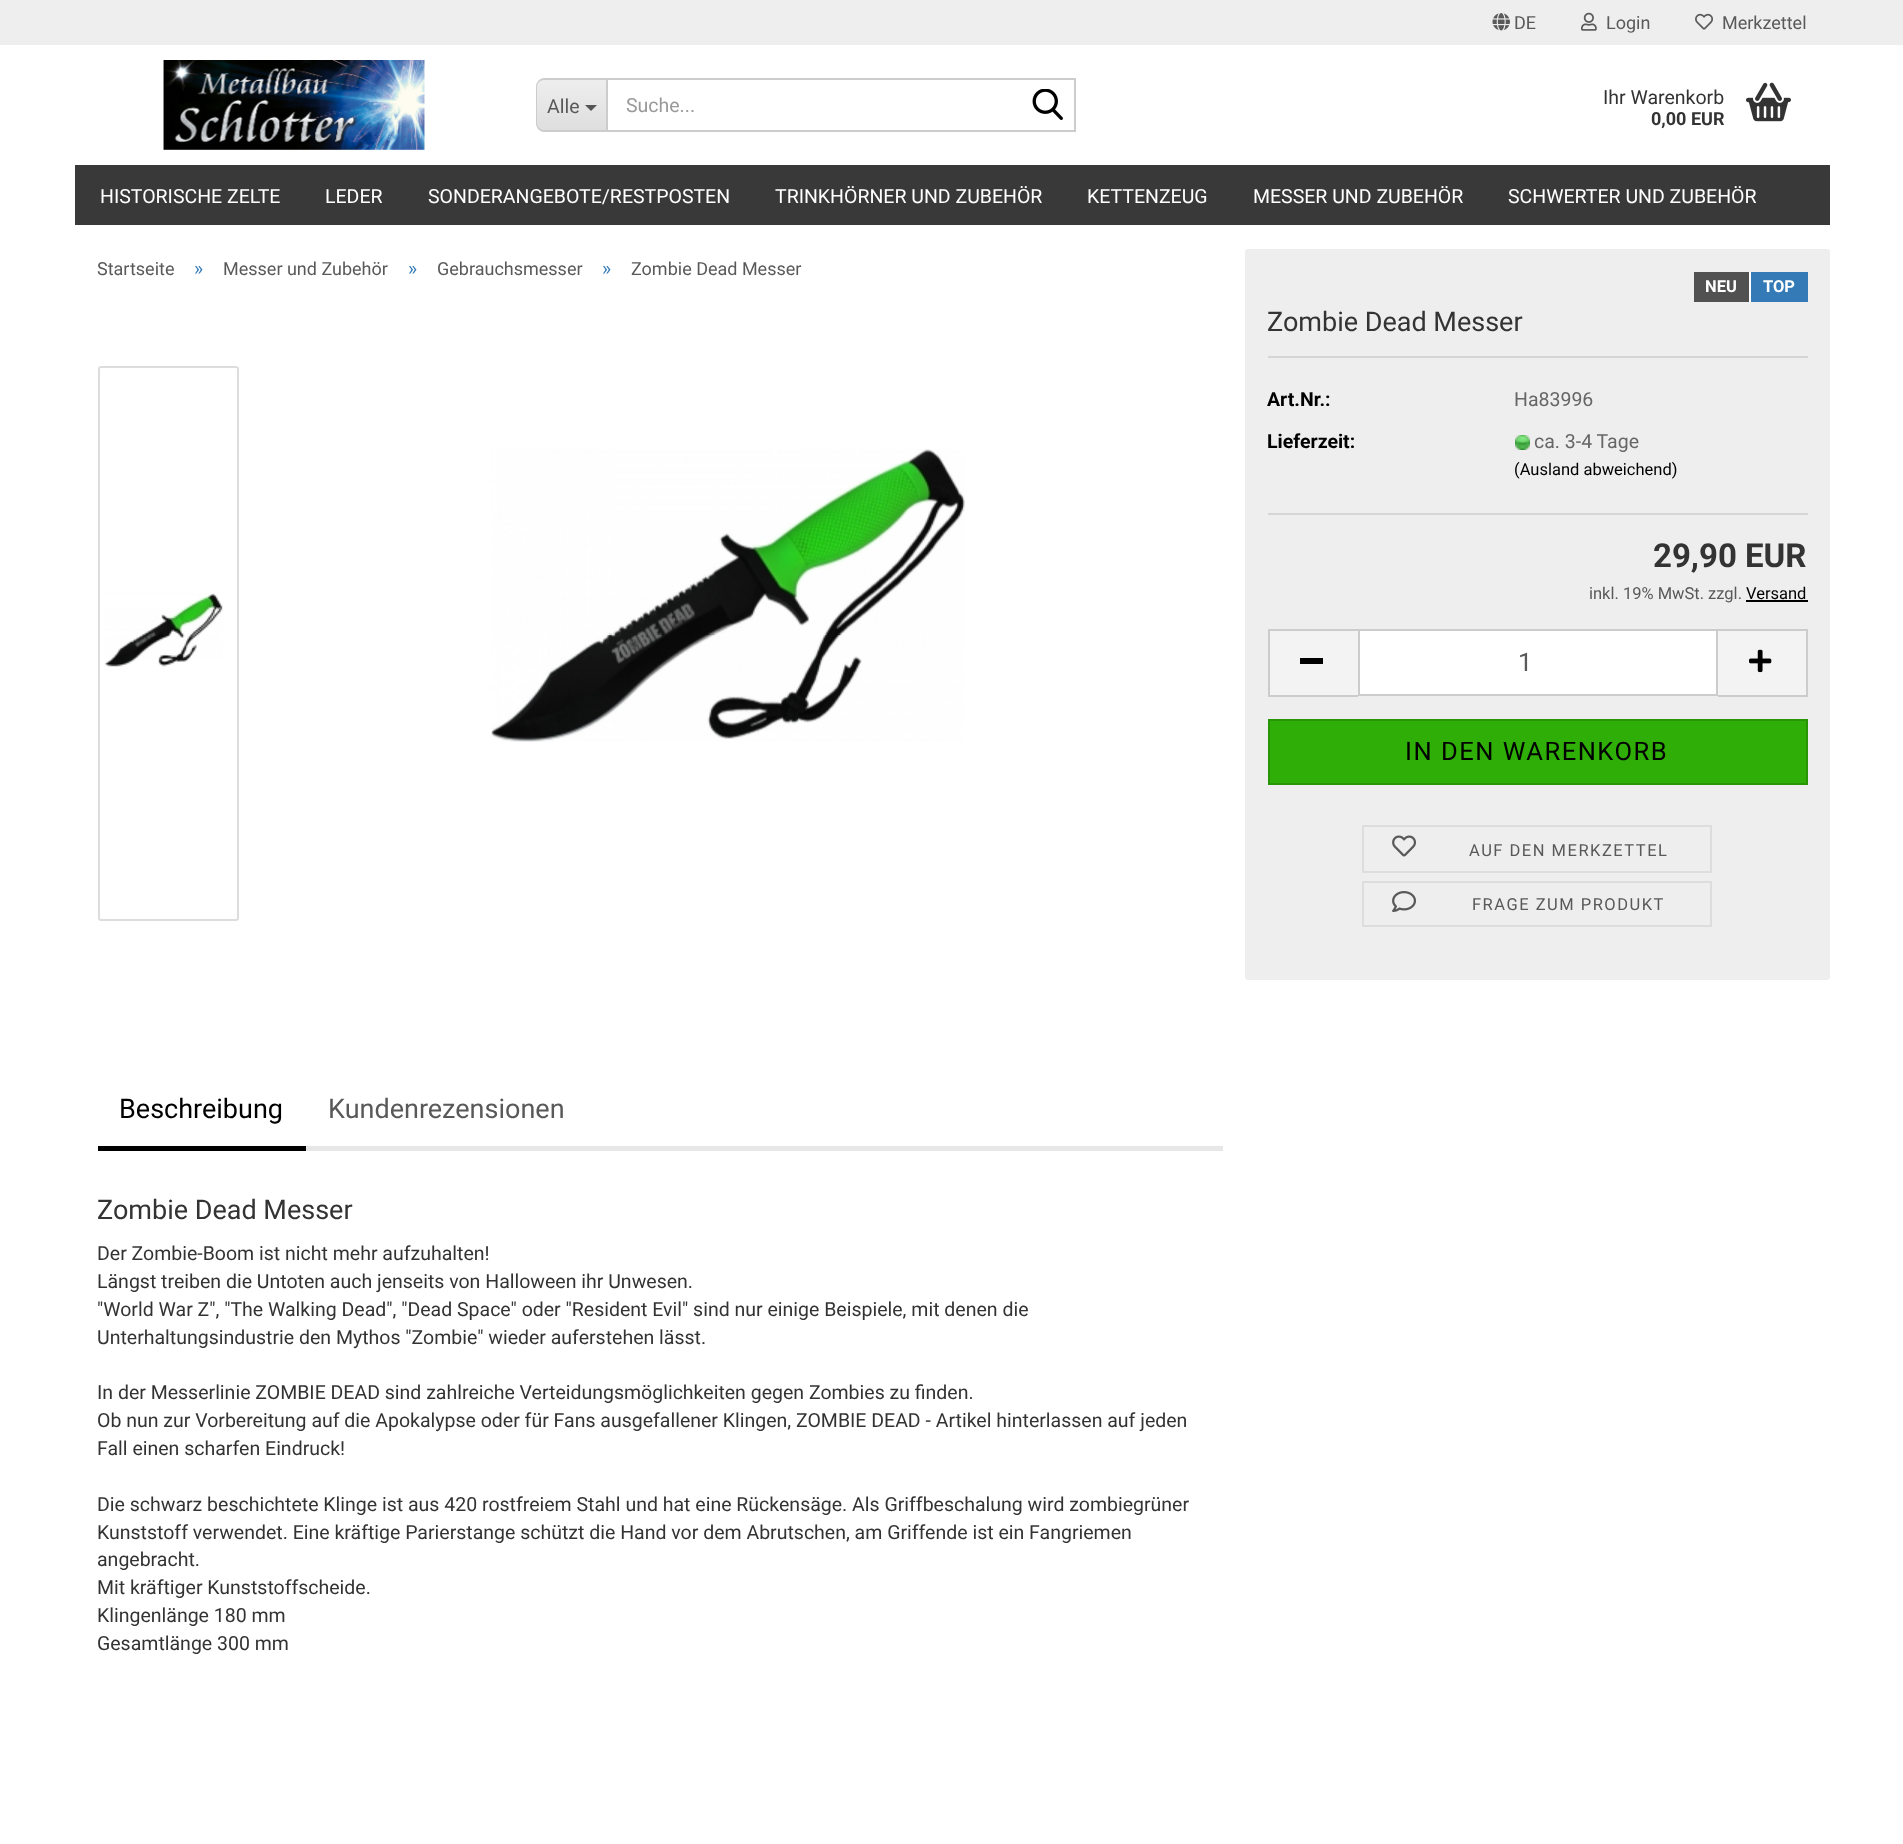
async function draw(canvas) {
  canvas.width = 1903
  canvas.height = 1844
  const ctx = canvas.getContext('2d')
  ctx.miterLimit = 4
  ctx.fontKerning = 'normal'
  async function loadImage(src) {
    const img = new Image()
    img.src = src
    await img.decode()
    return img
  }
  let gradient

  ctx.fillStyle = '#fff'
  ctx.fillRect(0, 0, 1903, 1844)
  ctx.fillStyle = '#eee'
  ctx.fillRect(0, 0, 1903, 45)
  ctx.drawImage(await loadImage('image0.png'), 1492, 13, 18, 18)
  ctx.font = '18px Roboto'
  ctx.fillStyle = '#595959'
  ctx.fillText('DE', 1514, 29)
  ctx.drawImage(await loadImage('image1.png'), 1581, 12, 16, 19)
  ctx.fillText('Login', 1606, 29)
  ctx.drawImage(await loadImage('image2.png'), 1695, 13, 18, 17)
  ctx.fillText('Merkzettel', 1722, 29)
  ctx.drawImage(await loadImage('image3.png'), 163, 60, 262, 90)
  ctx.save()
  ctx.beginPath()
  ctx.roundRect(536, 78, 70, 54, [9, 0, 0, 9])
  ctx.clip()
  gradient = ctx.createLinearGradient(572, 80, 572, 131)
  gradient.addColorStop(0, '#eee')
  gradient.addColorStop(1, '#dedede')
  ctx.fillStyle = gradient
  ctx.fillRect(536, 80, 70, 51)
  ctx.restore()
  ctx.fillStyle = '#ccc'
  ctx.beginPath()
  ctx.moveTo(544, 78)
  ctx.lineTo(606, 78)
  ctx.lineTo(606, 132)
  ctx.lineTo(544, 132)
  ctx.bezierCurveTo(540, 132, 536, 128, 536, 123)
  ctx.lineTo(536, 87)
  ctx.bezierCurveTo(536, 82, 540, 78, 544, 78)
  ctx.closePath()
  ctx.moveTo(544, 80)
  ctx.lineTo(606, 80)
  ctx.lineTo(606, 130)
  ctx.lineTo(544, 130)
  ctx.bezierCurveTo(540, 130, 537, 127, 537, 123)
  ctx.lineTo(537, 87)
  ctx.bezierCurveTo(537, 83, 540, 80, 544, 80)
  ctx.closePath()
  ctx.fill('evenodd')
  ctx.font = '19.5px Roboto'
  ctx.fillStyle = '#595959'
  ctx.fillText('Alle', 547, 113)
  ctx.fillStyle = '#555'
  ctx.beginPath()
  ctx.moveTo(585, 105)
  ctx.lineTo(597, 105)
  ctx.lineTo(591, 111)
  ctx.closePath()
  ctx.fill()
  ctx.strokeStyle = '#ccc'
  ctx.lineWidth = 2
  ctx.strokeRect(607, 79, 468, 52)
  ctx.fillStyle = '#999'
  ctx.fillText('Suche...', 626, 112)
  ctx.drawImage(await loadImage('image4.png'), 1032, 89, 31, 31)
  ctx.fillStyle = '#333'
  ctx.fillText('Ihr Warenkorb', 1603, 104)
  ctx.font = 'bold 18px Roboto'
  ctx.fillText('0,00 EUR', 1651, 125)
  ctx.drawImage(await loadImage('image5.png'), 1746, 82, 45, 40)
  ctx.fillStyle = '#393939'
  ctx.fillRect(75, 165, 1755, 60)
  ctx.font = '19.5px Roboto'
  ctx.fillStyle = '#fff'
  ctx.fillText('HISTORISCHE ZELTE', 100, 203)
  ctx.fillText('LEDER', 325, 203)
  ctx.fillText('SONDERANGEBOTE/RESTPOSTEN', 428, 203)
  ctx.fillText('TRINKHÖRNER UND ZUBEHÖR', 775, 203)
  ctx.fillText('KETTENZEUG', 1087, 203)
  ctx.fillText('MESSER UND ZUBEHÖR', 1253, 203)
  ctx.fillText('SCHWERTER UND ZUBEHÖR', 1508, 203)
  ctx.font = '18px Roboto'
  ctx.fillStyle = '#595959'
  ctx.fillText('Startseite', 97, 275)
  ctx.font = '19.5px Roboto'
  ctx.fillStyle = '#337ab7'
  ctx.fillText('»', 194, 275)
  ctx.font = '18px Roboto'
  ctx.fillStyle = '#595959'
  ctx.fillText('Messer und Zubehör', 223, 275)
  ctx.font = '19.5px Roboto'
  ctx.fillStyle = '#337ab7'
  ctx.fillText('»', 408, 275)
  ctx.font = '18px Roboto'
  ctx.fillStyle = '#595959'
  ctx.fillText('Gebrauchsmesser', 437, 275)
  ctx.font = '19.5px Roboto'
  ctx.fillStyle = '#337ab7'
  ctx.fillText('»', 602, 275)
  ctx.font = '18px Roboto'
  ctx.fillStyle = '#595959'
  ctx.fillText('Zombie Dead Messer', 631, 275)
  ctx.beginPath()
  ctx.roundRect(99, 367, 139, 553, 2)
  ctx.strokeStyle = '#ddd'
  ctx.stroke()
  ctx.drawImage(await loadImage('image6.png'), 104, 593, 119, 74)
  ctx.drawImage(await loadImage('image7.png'), 491, 449, 474, 293)
  ctx.fillStyle = '#eee'
  ctx.beginPath()
  ctx.roundRect(1245, 249, 585, 731, 3)
  ctx.fill()
  ctx.fillStyle = '#515151'
  ctx.fillRect(1694, 272, 55, 30)
  ctx.fillStyle = '#fff'
  ctx.fillRect(1749, 272, 2, 30)
  ctx.font = 'bold 16.5px Roboto'
  ctx.fillText('NEU', 1705, 292)
  ctx.fillStyle = '#337ab7'
  ctx.fillRect(1751, 272, 57, 30)
  ctx.fillStyle = '#fff'
  ctx.fillText('TOP', 1763, 292)
  ctx.fillStyle = '#d5d5d5'
  ctx.fillRect(1268, 356, 540, 2)
  ctx.font = '27px Roboto'
  ctx.fillStyle = '#333'
  ctx.fillText('Zombie Dead Messer', 1267, 331)
  ctx.fillStyle = '#d5d5d5'
  ctx.fillRect(1268, 513, 540, 2)
  ctx.font = 'bold 19.5px Roboto'
  ctx.fillStyle = '#000'
  ctx.fillText('Art.Nr.:', 1267, 406)
  ctx.font = '19.5px Roboto'
  ctx.fillStyle = '#666'
  ctx.fillText('Ha83996', 1514, 406)
  ctx.font = 'bold 19.5px Roboto'
  ctx.fillStyle = '#000'
  ctx.fillText('Lieferzeit:', 1267, 448)
  ctx.drawImage(await loadImage('image8.png'), 1515, 435, 15, 15)
  ctx.font = '19.5px Roboto'
  ctx.fillStyle = '#666'
  ctx.fillText('ca. 3-4 Tage', 1534, 448)
  ctx.font = '16.5px Roboto'
  ctx.fillStyle = '#000'
  ctx.fillText('(Ausland abweichend)', 1514, 475)
  ctx.font = 'bold 33px Roboto'
  ctx.fillStyle = '#333'
  ctx.fillText('29,90 EUR', 1653, 567)
  ctx.font = '16.5px Roboto'
  ctx.fillStyle = '#595959'
  ctx.fillText('inkl. 19% MwSt. zzgl.', 1589, 599)
  ctx.fillStyle = '#000'
  ctx.fillText('Versand', 1746, 599)
  ctx.fillRect(1746, 600, 62, 2)
  ctx.fillStyle = '#f3f3f3'
  ctx.fillRect(1270, 631, 88, 64)
  ctx.fillStyle = '#ccc'
  ctx.fillRect(1268, 629, 90, 2)
  ctx.fillRect(1268, 695, 90, 2)
  ctx.fillRect(1268, 629, 2, 67)
  ctx.fillStyle = '#000'
  ctx.fillRect(1300, 658, 23, 6)
  ctx.fillStyle = '#fff'
  ctx.beginPath()
  ctx.rect(1359, 630, 358, 65)
  ctx.fill()
  ctx.strokeStyle = '#ccc'
  ctx.stroke()
  ctx.font = '25.5px Roboto'
  ctx.fillStyle = '#595959'
  ctx.fillText('1', 1518, 671)
  ctx.fillStyle = '#f3f3f3'
  ctx.fillRect(1718, 631, 88, 64)
  ctx.fillStyle = '#ccc'
  ctx.fillRect(1718, 629, 90, 2)
  ctx.fillRect(1806, 629, 2, 67)
  ctx.fillRect(1718, 695, 90, 2)
  ctx.drawImage(await loadImage('image9.png'), 1749, 649, 23, 24)
  ctx.fillStyle = '#2eae06'
  ctx.beginPath()
  ctx.rect(1269, 720, 538, 64)
  ctx.fill()
  ctx.strokeStyle = '#279505'
  ctx.stroke()
  ctx.letterSpacing = '1.5px'
  ctx.fillStyle = '#000'
  ctx.fillText('IN DEN WARENKORB', 1405, 760)
  ctx.strokeStyle = '#ddd'
  ctx.strokeRect(1363, 826, 348, 46)
  ctx.drawImage(await loadImage('image10.png'), 1392, 835, 24, 22)
  ctx.font = '16.5px Roboto'
  ctx.fillStyle = '#595959'
  ctx.fillText('AUF DEN MERKZETTEL', 1469, 856)
  ctx.strokeRect(1363, 882, 348, 44)
  ctx.drawImage(await loadImage('image11.png'), 1392, 891, 24, 21)
  ctx.fillText('FRAGE ZUM PRODUKT', 1472, 910)
  ctx.fillStyle = '#e7e7e7'
  ctx.fillRect(306, 1146, 917, 5)
  ctx.fillStyle = '#000'
  ctx.fillRect(98, 1146, 208, 5)
  ctx.letterSpacing = '0px'
  ctx.font = '27px Roboto'
  ctx.fillText('Beschreibung', 119, 1118)
  ctx.fillStyle = '#595959'
  ctx.fillText('Kundenrezensionen', 328, 1118)
  ctx.fillStyle = '#333'
  ctx.fillText('Zombie Dead Messer', 97, 1219)
  ctx.font = '19.5px Roboto'
  ctx.fillText('Der Zombie-Boom ist nicht mehr aufzuhalten!', 97, 1260)
  ctx.fillText('Längst treiben die Untoten auch jenseits von Halloween ihr Unwesen.', 97, 1288)
  ctx.fillText('"World War Z", "The Walking Dead", "Dead Space" oder "Resident Evil" sind nur einige Beispiele, mit denen die', 97, 1316)
  ctx.fillText('Unterhaltungsindustrie den Mythos "Zombie" wieder auferstehen lässt.', 97, 1344)
  ctx.fillText('In der Messerlinie ZOMBIE DEAD sind zahlreiche Verteidungsmöglichkeiten gegen Zombies zu finden.', 97, 1399)
  ctx.fillText('Ob nun zur Vorbereitung auf die Apokalypse oder für Fans ausgefallener Klingen, ZOMBIE DEAD - Artikel hinterlassen auf jeden', 97, 1427)
  ctx.fillText('Fall einen scharfen Eindruck!', 97, 1455)
  ctx.fillText('Die schwarz beschichtete Klinge ist aus 420 rostfreiem Stahl und hat eine Rückensäge. Als Griffbeschalung wird zombiegrüner', 97, 1511)
  ctx.fillText('Kunststoff verwendet. Eine kräftige Parierstange schützt die Hand vor dem Abrutschen, am Griffende ist ein Fangriemen', 97, 1539)
  ctx.fillText('angebracht.', 97, 1566)
  ctx.fillText('Mit kräftiger Kunststoffscheide.', 97, 1594)
  ctx.fillText('Klingenlänge 180 mm', 97, 1622)
  ctx.fillText('Gesamtlänge 300 mm', 97, 1650)
}

draw(document.querySelector('canvas'))
